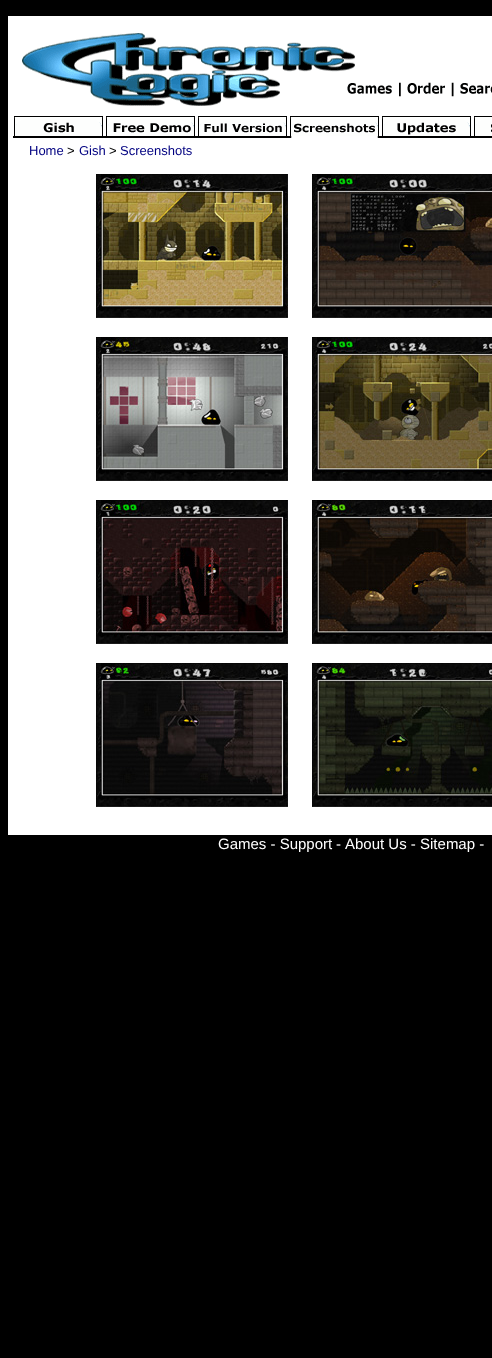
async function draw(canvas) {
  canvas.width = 492
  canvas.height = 1358
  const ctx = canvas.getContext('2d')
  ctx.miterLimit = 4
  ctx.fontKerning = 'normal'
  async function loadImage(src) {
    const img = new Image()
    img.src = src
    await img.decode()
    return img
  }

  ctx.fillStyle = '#000'
  ctx.fillRect(0, 0, 492, 1358)
  ctx.drawImage(await loadImage('image0.png'), 8, 16, 484, 100)
  ctx.fillStyle = '#fff'
  ctx.fillRect(8, 116, 5, 719)
  ctx.fillRect(289, 136, 92, 2)
  ctx.drawImage(await loadImage('image1.png'), 289, 136, 92, 2)
  ctx.fillRect(13, 116, 461, 20)
  ctx.drawImage(await loadImage('image2.png'), 14, 116, 89, 20)
  ctx.drawImage(await loadImage('image3.png'), 106, 116, 89, 20)
  ctx.drawImage(await loadImage('image4.png'), 198, 116, 89, 20)
  ctx.drawImage(await loadImage('image5.png'), 290, 116, 89, 20)
  ctx.drawImage(await loadImage('image6.png'), 382, 116, 89, 20)
  ctx.drawImage(await loadImage('image7.png'), 474, 116, 18, 20)
  ctx.fillRect(13, 138, 479, 697)
  ctx.font = '13px Liberation Sans'
  ctx.fillStyle = '#000080'
  ctx.fillText('Home', 29, 155)
  ctx.fillStyle = '#000'
  ctx.fillText('>', 67, 155)
  ctx.fillStyle = '#000080'
  ctx.fillText('Gish', 79, 155)
  ctx.fillStyle = '#000'
  ctx.fillText('>', 109, 155)
  ctx.fillStyle = '#000080'
  ctx.fillText('Screenshots', 120, 155)
  ctx.drawImage(await loadImage('image8.png'), 96, 174, 192, 144)
  ctx.drawImage(await loadImage('image9.png'), 312, 174, 180, 144)
  ctx.drawImage(await loadImage('image10.png'), 96, 337, 192, 144)
  ctx.drawImage(await loadImage('image11.png'), 312, 337, 180, 144)
  ctx.drawImage(await loadImage('image12.png'), 96, 500, 192, 144)
  ctx.drawImage(await loadImage('image13.png'), 312, 500, 180, 144)
  ctx.drawImage(await loadImage('image14.png'), 96, 663, 192, 144)
  ctx.drawImage(await loadImage('image15.png'), 312, 663, 180, 144)
  ctx.font = '15px Liberation Sans'
  ctx.fillStyle = '#fff'
  ctx.fillText('Games - Support', 218, 849)
  ctx.fillText('-', 336, 849)
  ctx.fillText('About Us - Sitemap -', 345, 849)
}

draw(document.querySelector('canvas'))
